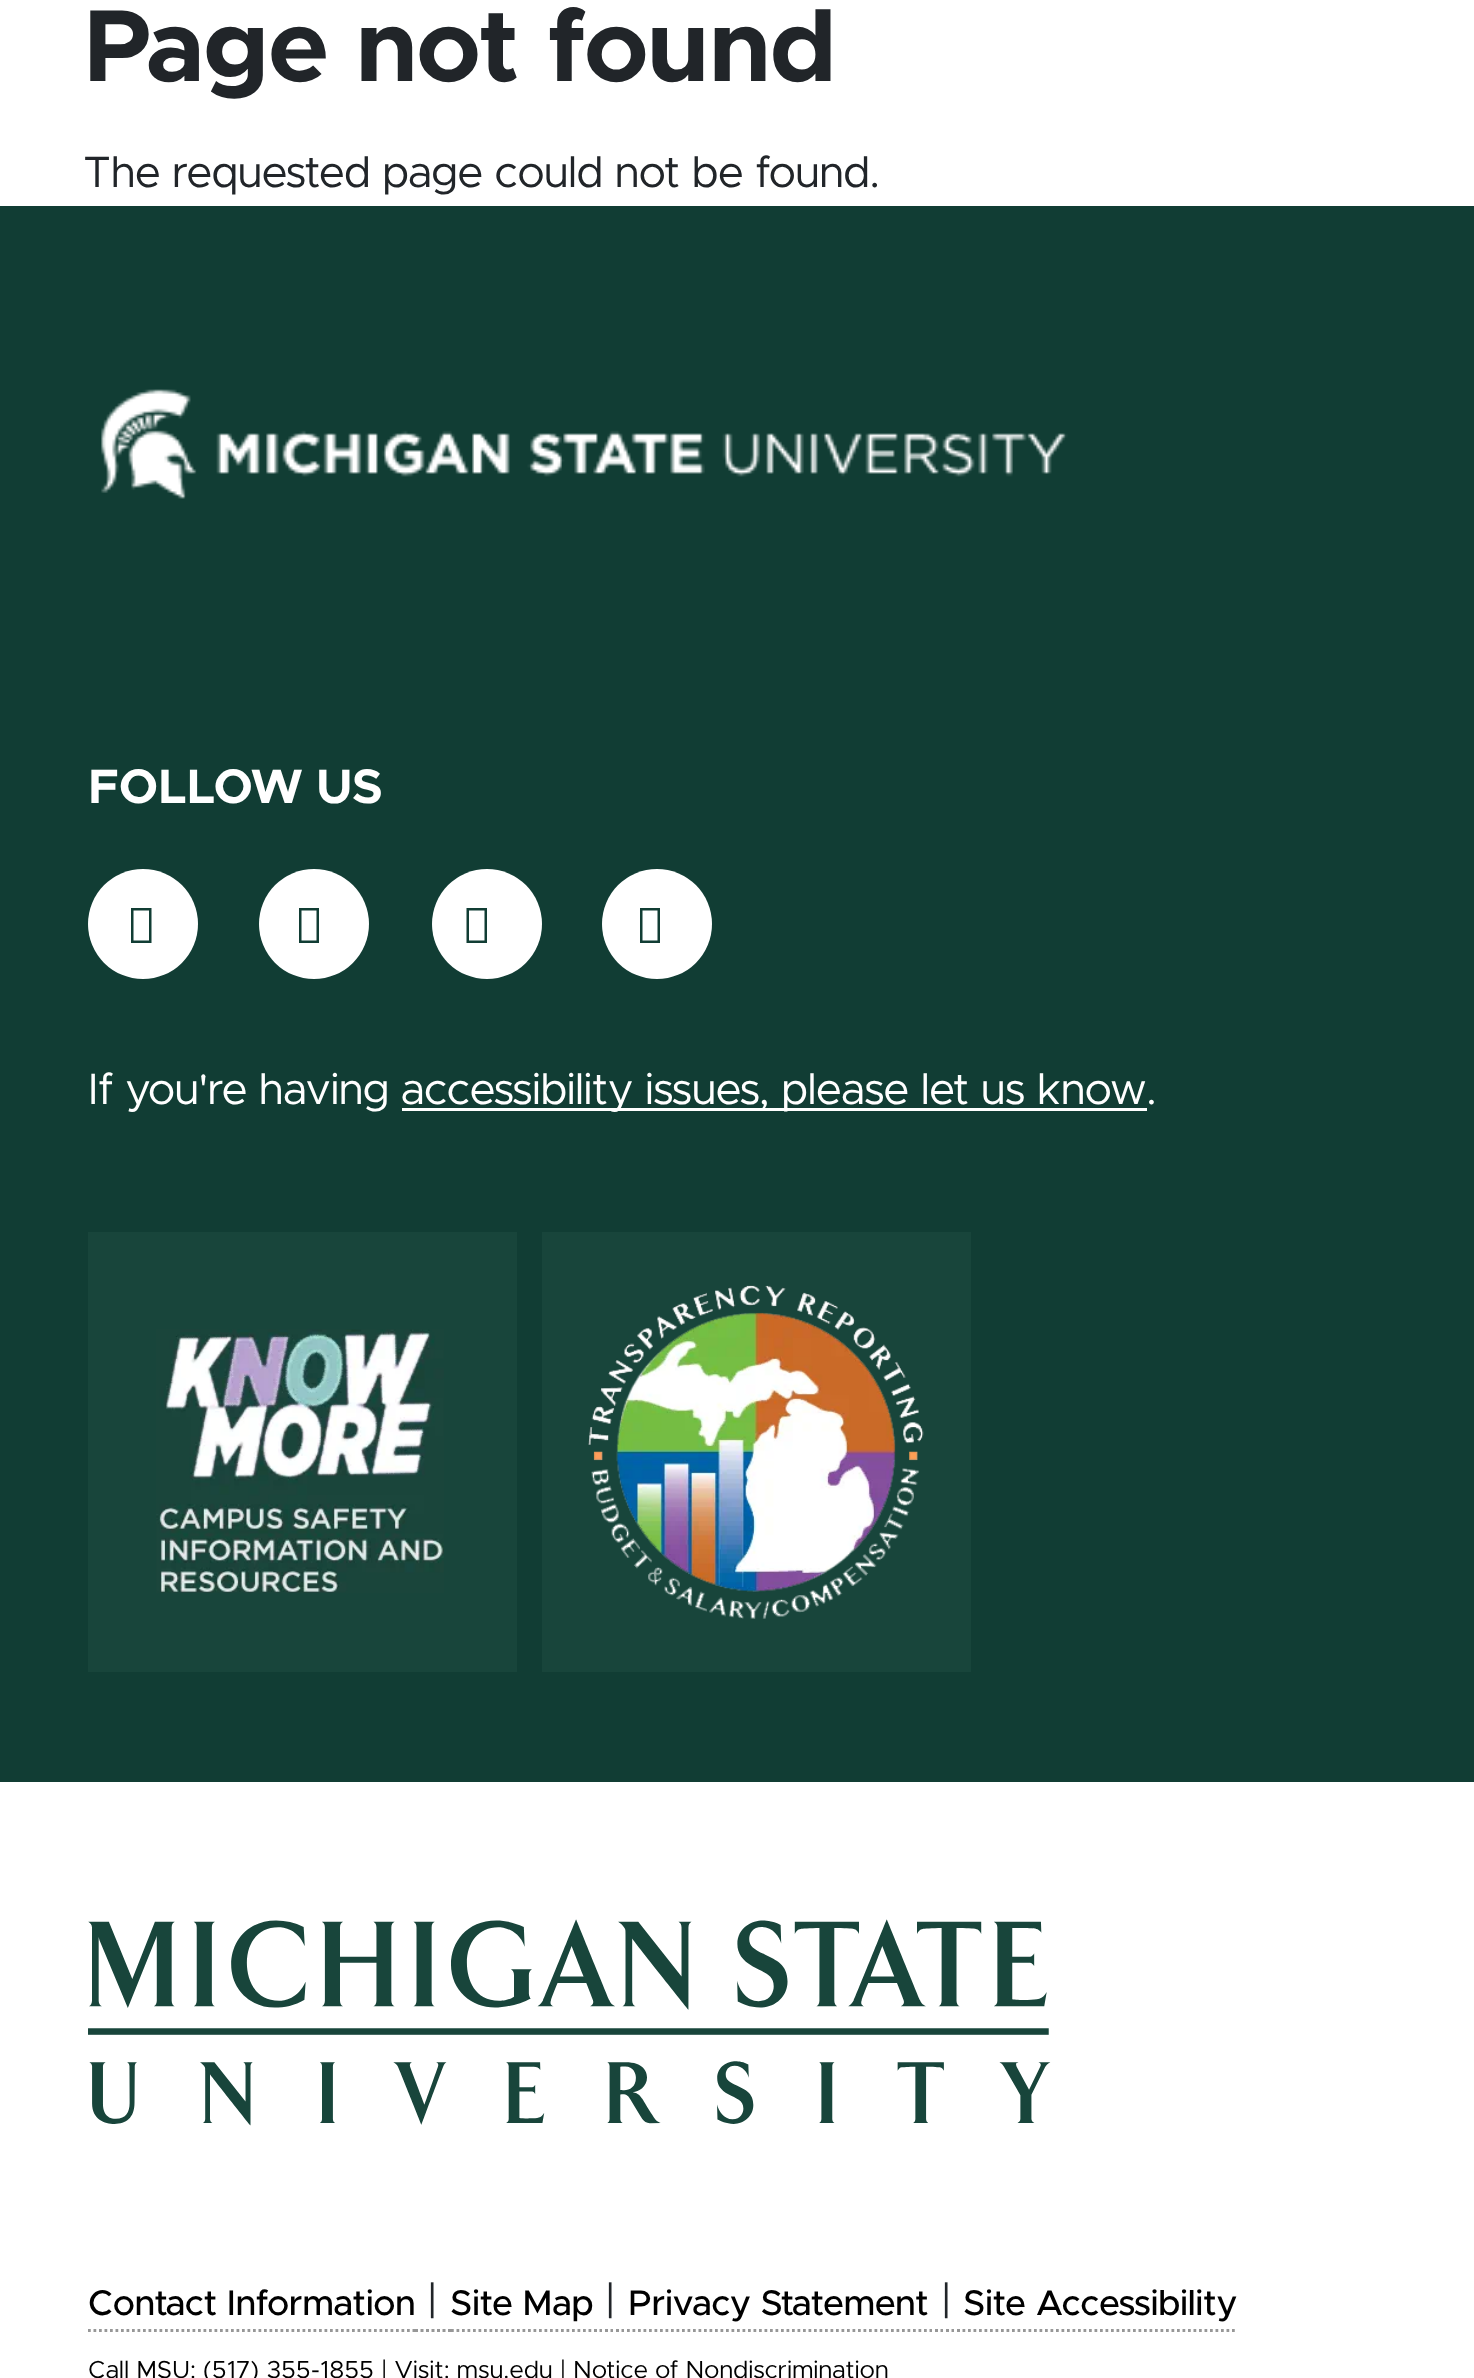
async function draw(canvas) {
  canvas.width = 1474
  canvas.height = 2378
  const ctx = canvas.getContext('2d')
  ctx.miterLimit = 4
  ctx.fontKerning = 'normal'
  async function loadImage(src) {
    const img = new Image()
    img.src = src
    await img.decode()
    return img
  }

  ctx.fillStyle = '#fff'
  ctx.fillRect(0, 0, 1474, 2378)
  ctx.font = 'bold 102.75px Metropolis'
  ctx.fillStyle = '#212529'
  ctx.fillText('Page not found', 83, 81)
  ctx.font = '44px Metropolis'
  ctx.fillText('The requested page could not be found.', 83, 187)
  ctx.fillStyle = '#113d34'
  ctx.fillRect(0, 206, 1474, 1576)
  ctx.drawImage(await loadImage('image0.png'), 101, 389, 967, 110)
  ctx.font = 'bold 48.5px Metropolis'
  ctx.fillStyle = '#fff'
  ctx.fillText('FOLLOW US', 88, 803)
  ctx.beginPath()
  ctx.arc(143, 924, 55, 0, 2 * Math.PI)
  ctx.fill()
  ctx.fillStyle = '#113d34'
  ctx.beginPath()
  ctx.moveTo(131, 943)
  ctx.lineTo(131, 908)
  ctx.lineTo(151.5, 908)
  ctx.lineTo(151.5, 943)
  ctx.closePath()
  ctx.moveTo(133.5, 940.5)
  ctx.lineTo(149, 940.5)
  ctx.lineTo(149, 910.5)
  ctx.lineTo(133.5, 910.5)
  ctx.closePath()
  ctx.fill()
  ctx.fillStyle = '#fff'
  ctx.beginPath()
  ctx.arc(314, 924, 55, 0, 2 * Math.PI)
  ctx.fill()
  ctx.fillStyle = '#113d34'
  ctx.beginPath()
  ctx.moveTo(299, 943)
  ctx.lineTo(299, 908)
  ctx.lineTo(319, 908)
  ctx.lineTo(319, 943)
  ctx.closePath()
  ctx.moveTo(301.5, 940.5)
  ctx.lineTo(316.5, 940.5)
  ctx.lineTo(316.5, 910.5)
  ctx.lineTo(301.5, 910.5)
  ctx.closePath()
  ctx.fill()
  ctx.fillStyle = '#fff'
  ctx.beginPath()
  ctx.arc(487, 924, 55, 0, 2 * Math.PI)
  ctx.fill()
  ctx.fillStyle = '#113d34'
  ctx.beginPath()
  ctx.moveTo(466.5, 943)
  ctx.lineTo(466.5, 908)
  ctx.lineTo(487, 908)
  ctx.lineTo(487, 943)
  ctx.closePath()
  ctx.moveTo(469, 940.5)
  ctx.lineTo(484.5, 940.5)
  ctx.lineTo(484.5, 910.5)
  ctx.lineTo(469, 910.5)
  ctx.closePath()
  ctx.fill()
  ctx.fillStyle = '#fff'
  ctx.beginPath()
  ctx.arc(657, 924, 55, 0, 2 * Math.PI)
  ctx.fill()
  ctx.fillStyle = '#113d34'
  ctx.beginPath()
  ctx.moveTo(640, 943)
  ctx.lineTo(640, 908)
  ctx.lineTo(660, 908)
  ctx.lineTo(660, 943)
  ctx.closePath()
  ctx.moveTo(642.5, 940.5)
  ctx.lineTo(657.5, 940.5)
  ctx.lineTo(657.5, 910.5)
  ctx.lineTo(642.5, 910.5)
  ctx.closePath()
  ctx.fill()
  ctx.font = '44px Metropolis'
  ctx.fillStyle = '#fff'
  ctx.fillText('If you\'re having', 88, 1104)
  ctx.fillRect(402, 1108, 745, 3)
  ctx.fillText('accessibility issues, please let us know.', 401, 1104)
  ctx.fillStyle = '#18453b'
  ctx.fillRect(88, 1232, 429, 440)
  ctx.drawImage(await loadImage('image1.png'), 156, 1329, 288, 264)
  ctx.fillRect(542, 1232, 429, 440)
  ctx.drawImage(await loadImage('image2.png'), 588, 1285, 336, 334)
  ctx.drawImage(await loadImage('image3.png'), 88, 1919, 963, 207)
  ctx.beginPath()
  ctx.moveTo(88, 2330.5)
  ctx.lineTo(415, 2330.5)
  ctx.strokeStyle = '#979797'
  ctx.lineWidth = 2.8
  ctx.setLineDash([2.75, 2.75])
  ctx.stroke()
  ctx.beginPath()
  ctx.moveTo(415, 2330.5)
  ctx.lineTo(418, 2330.5)
  ctx.moveTo(420.5, 2330.5)
  ctx.lineTo(423.5, 2330.5)
  ctx.moveTo(426, 2330.5)
  ctx.lineTo(429, 2330.5)
  ctx.moveTo(431.5, 2330.5)
  ctx.lineTo(434.5, 2330.5)
  ctx.moveTo(437, 2330.5)
  ctx.lineTo(440, 2330.5)
  ctx.moveTo(442.5, 2330.5)
  ctx.lineTo(445.5, 2330.5)
  ctx.moveTo(448, 2330.5)
  ctx.lineTo(451, 2330.5)
  ctx.setLineDash([])
  ctx.stroke()
  ctx.font = '500 35.75px Metropolis'
  ctx.fillStyle = '#000'
  ctx.fillText('Contact Information', 88, 2315)
  ctx.font = '44px Metropolis'
  ctx.fillStyle = '#212529'
  ctx.fillText('|', 427, 2315)
  ctx.beginPath()
  ctx.moveTo(451, 2330.5)
  ctx.lineTo(594, 2330.5)
  ctx.setLineDash([2.75, 2.75])
  ctx.stroke()
  ctx.beginPath()
  ctx.moveTo(594, 2330.5)
  ctx.lineTo(597, 2330.5)
  ctx.moveTo(599.5, 2330.5)
  ctx.lineTo(602, 2330.5)
  ctx.moveTo(605, 2330.5)
  ctx.lineTo(608, 2330.5)
  ctx.moveTo(610.5, 2330.5)
  ctx.lineTo(613, 2330.5)
  ctx.moveTo(616, 2330.5)
  ctx.lineTo(619, 2330.5)
  ctx.moveTo(621.5, 2330.5)
  ctx.lineTo(624, 2330.5)
  ctx.setLineDash([])
  ctx.stroke()
  ctx.font = '500 35.75px Metropolis'
  ctx.fillStyle = '#000'
  ctx.fillText('Site Map', 450, 2315)
  ctx.font = '44px Metropolis'
  ctx.fillStyle = '#212529'
  ctx.fillText('|', 605, 2315)
  ctx.beginPath()
  ctx.moveTo(627, 2330.5)
  ctx.lineTo(929.5, 2330.5)
  ctx.setLineDash([2.75, 2.75])
  ctx.stroke()
  ctx.beginPath()
  ctx.moveTo(929.5, 2330.5)
  ctx.lineTo(932, 2330.5)
  ctx.moveTo(935, 2330.5)
  ctx.lineTo(938, 2330.5)
  ctx.moveTo(940.5, 2330.5)
  ctx.lineTo(943, 2330.5)
  ctx.moveTo(946, 2330.5)
  ctx.lineTo(949, 2330.5)
  ctx.moveTo(951.5, 2330.5)
  ctx.lineTo(954, 2330.5)
  ctx.moveTo(957, 2330.5)
  ctx.lineTo(960, 2330.5)
  ctx.setLineDash([])
  ctx.stroke()
  ctx.font = '500 35.75px Metropolis'
  ctx.fillStyle = '#000'
  ctx.fillText('Privacy Statement', 628, 2315)
  ctx.font = '44px Metropolis'
  ctx.fillStyle = '#212529'
  ctx.fillText('|', 941, 2315)
  ctx.beginPath()
  ctx.moveTo(962.5, 2330.5)
  ctx.lineTo(1237.5, 2330.5)
  ctx.setLineDash([2.75, 2.75])
  ctx.stroke()
  ctx.font = '500 35.75px Metropolis'
  ctx.fillStyle = '#000'
  ctx.fillText('Site Accessibility', 963, 2315)
  ctx.letterSpacing = '0.33px'
  ctx.font = '24.75px Metropolis'
  ctx.fillText('Call MSU: (517) 355-1855 | Visit: msu.edu | Notice of Nondiscrimination', 88, 2378)
}

draw(document.querySelector('canvas'))
